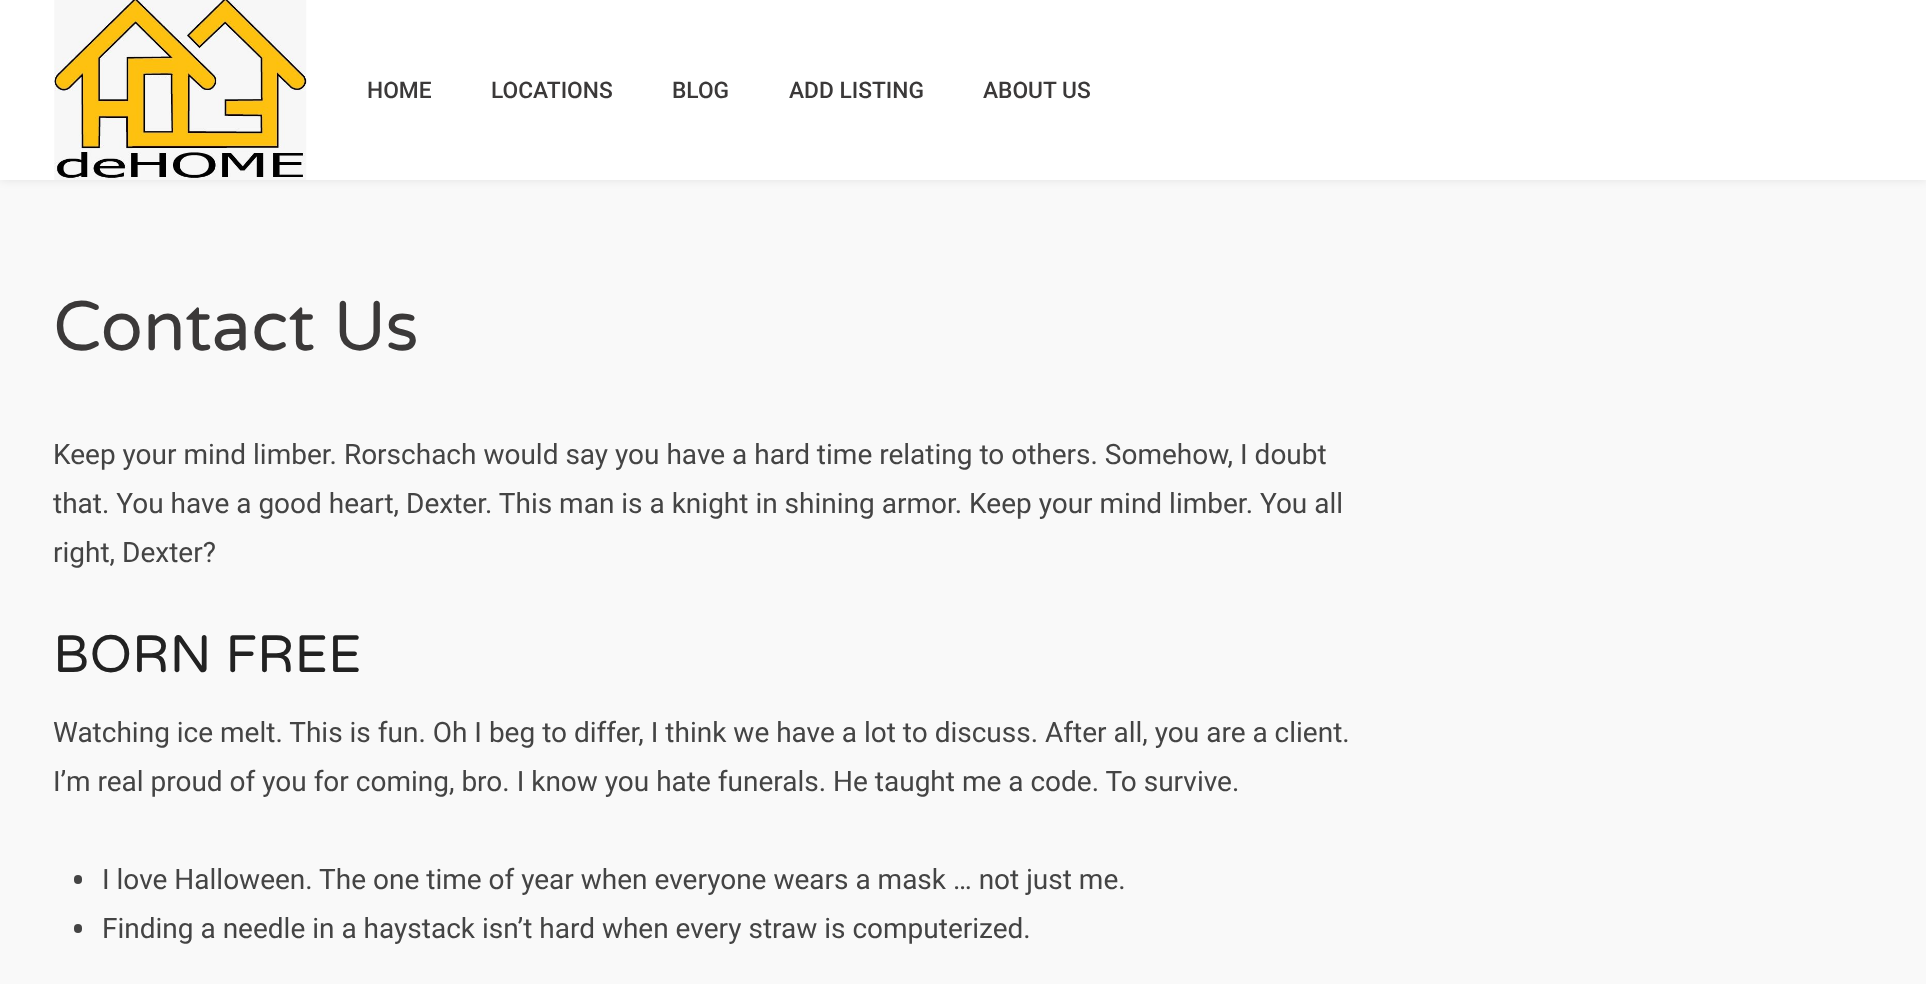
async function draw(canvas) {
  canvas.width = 1926
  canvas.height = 984
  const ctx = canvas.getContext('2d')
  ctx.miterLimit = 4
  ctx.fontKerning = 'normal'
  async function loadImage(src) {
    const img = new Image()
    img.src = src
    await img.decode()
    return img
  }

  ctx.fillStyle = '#f9f9f9'
  ctx.fillRect(0, 0, 1926, 984)
  ctx.fillStyle = '#00000017'
  ctx.filter = 'blur(5px)'
  ctx.beginPath()
  ctx.rect(0, 0, 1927, 180)
  ctx.fill()
  ctx.filter = 'none'
  ctx.fillStyle = '#fff'
  ctx.fillRect(0, 0, 1926, 180)
  ctx.drawImage(await loadImage('image0.png'), 54, 0, 253, 180)
  ctx.font = '500 22.75px Roboto'
  ctx.fillStyle = '#3b3939'
  ctx.fillText('HOME', 367, 98)
  ctx.fillText('LOCATIONS', 491, 98)
  ctx.fillText('BLOG', 672, 98)
  ctx.fillText('ADD LISTING', 789, 98)
  ctx.fillText('ABOUT US', 983, 98)
  ctx.font = '70px Varela Round'
  ctx.fillText('Contact Us', 53, 350)
  ctx.font = '28px Roboto'
  ctx.fillStyle = '#444'
  ctx.fillText('Keep your mind limber. Rorschach would say you have a hard time relating to others. Somehow, I doubt', 53, 464)
  ctx.fillText('that. You have a good heart, Dexter. This man is a knight in shining armor. Keep your mind limber. You all', 53, 513)
  ctx.fillText('right, Dexter?', 53, 562)
  ctx.font = '52.5px Varela Round'
  ctx.fillStyle = '#222'
  ctx.fillText('BORN FREE', 53, 672)
  ctx.font = '28px Roboto'
  ctx.fillStyle = '#444'
  ctx.fillText('Watching ice melt. This is fun. Oh I beg to differ, I think we have a lot to discuss. After all, you are a client.', 53, 742)
  ctx.fillText('I’m real proud of you for coming, bro. I know you hate funerals. He taught me a code. To survive.', 53, 791)
  ctx.beginPath()
  ctx.roundRect(74, 875, 8, 9, 4)
  ctx.fill()
  ctx.fillText('I love Halloween. The one time of year when everyone wears a mask … not just me.', 102, 889)
  ctx.beginPath()
  ctx.roundRect(74, 924, 8, 9, 4)
  ctx.fill()
  ctx.fillText('Finding a needle in a haystack isn’t hard when every straw is computerized.', 102, 938)
}

draw(document.querySelector('canvas'))
